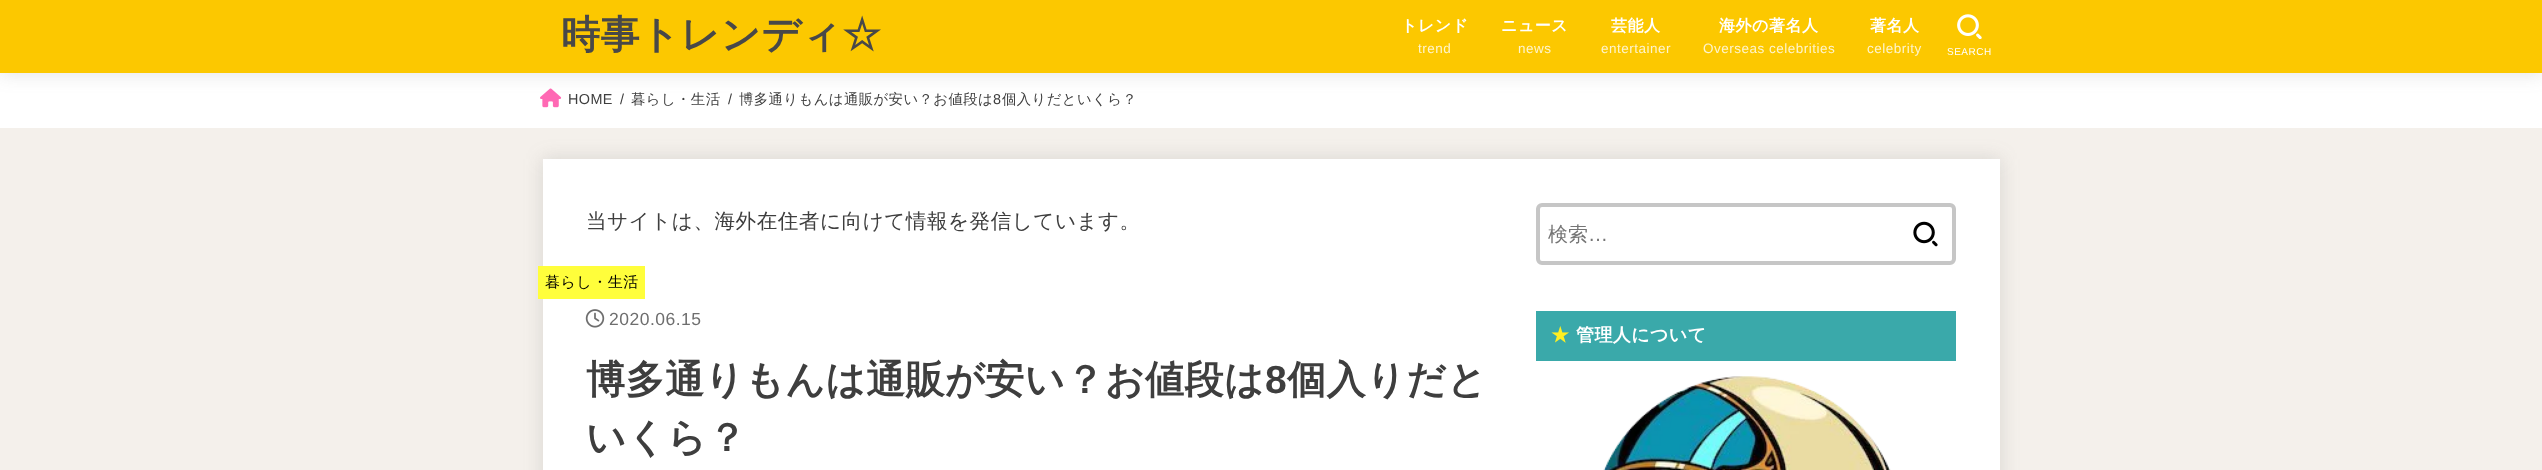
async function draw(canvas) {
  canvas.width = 2542
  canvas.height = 470
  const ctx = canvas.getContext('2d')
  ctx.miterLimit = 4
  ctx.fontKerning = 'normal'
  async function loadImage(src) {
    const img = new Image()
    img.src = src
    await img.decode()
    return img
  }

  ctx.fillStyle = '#f4f0eb'
  ctx.fillRect(0, 0, 2542, 470)
  ctx.fillStyle = '#fff'
  ctx.fillRect(0, 73, 2542, 55)
  ctx.drawImage(await loadImage('image1.png'), 540, 88, 22, 20)
  ctx.fillStyle = '#66666633'
  ctx.filter = 'blur(9.5px)'
  ctx.beginPath()
  ctx.rect(0, 0, 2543, 73)
  ctx.fill()
  ctx.filter = 'none'
  ctx.fillStyle = '#fcc800'
  ctx.fillRect(0, 0, 2542, 73)
  ctx.letterSpacing = '0.4px'
  ctx.font = 'bold 39.1px WenQuanYi Zen Hei'
  ctx.fillStyle = '#484848'
  ctx.fillText('時事トレンディ☆', 561, 48)
  ctx.letterSpacing = '0.5px'
  ctx.font = 'bold 16px WenQuanYi Zen Hei'
  ctx.fillStyle = '#fff'
  ctx.fillText('トレンド', 1401, 31)
  ctx.font = '13.5px Liberation Sans'
  ctx.fillStyle = '#fef4cc'
  ctx.fillText('trend', 1418, 53)
  ctx.font = 'bold 16px WenQuanYi Zen Hei'
  ctx.fillStyle = '#fff'
  ctx.fillText('ニュース', 1501, 31)
  ctx.font = '13.5px Liberation Sans'
  ctx.fillStyle = '#fef4cc'
  ctx.fillText('news', 1518, 53)
  ctx.font = 'bold 16px WenQuanYi Zen Hei'
  ctx.fillStyle = '#fff'
  ctx.fillText('芸能人', 1611, 31)
  ctx.font = '13.5px Liberation Sans'
  ctx.fillStyle = '#fef4cc'
  ctx.fillText('entertainer', 1601, 53)
  ctx.font = 'bold 16px WenQuanYi Zen Hei'
  ctx.fillStyle = '#fff'
  ctx.fillText('海外の著名人', 1719, 31)
  ctx.font = '13.5px Liberation Sans'
  ctx.fillStyle = '#fef4cc'
  ctx.fillText('Overseas celebrities', 1703, 53)
  ctx.font = 'bold 16px WenQuanYi Zen Hei'
  ctx.fillStyle = '#fff'
  ctx.fillText('著名人', 1870, 31)
  ctx.font = '13.5px Liberation Sans'
  ctx.fillStyle = '#fef4cc'
  ctx.fillText('celebrity', 1867, 53)
  ctx.drawImage(await loadImage('image0.png'), 1957, 14, 25, 25)
  ctx.font = '10px Liberation Sans'
  ctx.fillStyle = '#fff'
  ctx.fillText('SEARCH', 1947, 55)
  ctx.letterSpacing = '0.4px'
  ctx.font = '14.4px Liberation Sans'
  ctx.fillStyle = '#3e3e3e'
  ctx.fillText('HOME', 568, 104)
  ctx.fillText('/', 620, 104)
  ctx.font = '500 14.4px WenQuanYi Zen Hei'
  ctx.fillText('暮らし・生活', 631, 104)
  ctx.font = '14.4px Liberation Sans'
  ctx.fillText('/', 728, 104)
  ctx.font = '500 14.4px WenQuanYi Zen Hei'
  ctx.fillText('博多通りもんは通販が安い？お値段は', 739, 104)
  ctx.font = '14.4px Liberation Sans'
  ctx.fillText('8', 993, 104)
  ctx.font = '500 14.4px WenQuanYi Zen Hei'
  ctx.fillText('個入りだといくら？', 1002, 104)
  ctx.fillStyle = '#66666633'
  ctx.filter = 'blur(9.5px)'
  ctx.beginPath()
  ctx.rect(543, 159, 1457, 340)
  ctx.fill()
  ctx.filter = 'none'
  ctx.fillStyle = '#fff'
  ctx.fillRect(543, 159, 1457, 311)
  ctx.letterSpacing = '0.5px'
  ctx.font = '500 20.6px WenQuanYi Zen Hei'
  ctx.fillStyle = '#3e3e3e'
  ctx.fillText('当サイトは、海外在住者に向けて情報を発信しています。', 586, 228)
  ctx.fillStyle = '#fffe3b'
  ctx.fillRect(538, 266, 107, 33)
  ctx.font = '500 15px WenQuanYi Zen Hei'
  ctx.fillStyle = '#000'
  ctx.fillText('暮らし・生活', 545, 287)
  ctx.drawImage(await loadImage('image2.png'), 585, 309, 20, 19)
  ctx.font = '17.5px Liberation Sans'
  ctx.fillStyle = '#6e6e6e'
  ctx.fillText('2020.06.15', 609, 325)
  ctx.letterSpacing = '0.4px'
  ctx.font = 'bold 39.1px WenQuanYi Zen Hei'
  ctx.fillStyle = '#3e3e3e'
  ctx.fillText('博多通りもんは通販が安い？お値段は', 586, 393)
  ctx.font = 'bold 39.1px Liberation Sans'
  ctx.fillText('8', 1265, 393)
  ctx.font = 'bold 39.1px WenQuanYi Zen Hei'
  ctx.fillText('個入りだと', 1287, 393)
  ctx.fillText('いくら？', 586, 451)
  ctx.beginPath()
  ctx.roundRect(1538, 205, 416, 58, 4)
  ctx.strokeStyle = '#c6c6c6'
  ctx.lineWidth = 4
  ctx.stroke()
  ctx.letterSpacing = '0px'
  ctx.font = '500 20px WenQuanYi Zen Hei'
  ctx.fillStyle = '#757575'
  ctx.fillText('検索', 1548, 241)
  ctx.font = '20px Liberation Sans'
  ctx.fillText('…', 1588, 241)
  ctx.drawImage(await loadImage('image3.png'), 1913, 221, 25, 26)
  ctx.fillStyle = '#3aa9aa'
  ctx.fillRect(1536, 311, 420, 50)
  ctx.letterSpacing = '0.4px'
  ctx.font = 'bold 18px WenQuanYi Zen Hei'
  ctx.fillStyle = '#ffef20'
  ctx.fillText('★', 1551, 341)
  ctx.fillStyle = '#fff'
  ctx.fillText('管理人について', 1576, 341)
  ctx.drawImage(await loadImage('image4.png'), 1603, 376, 288, 94)
}

draw(document.querySelector('canvas'))
